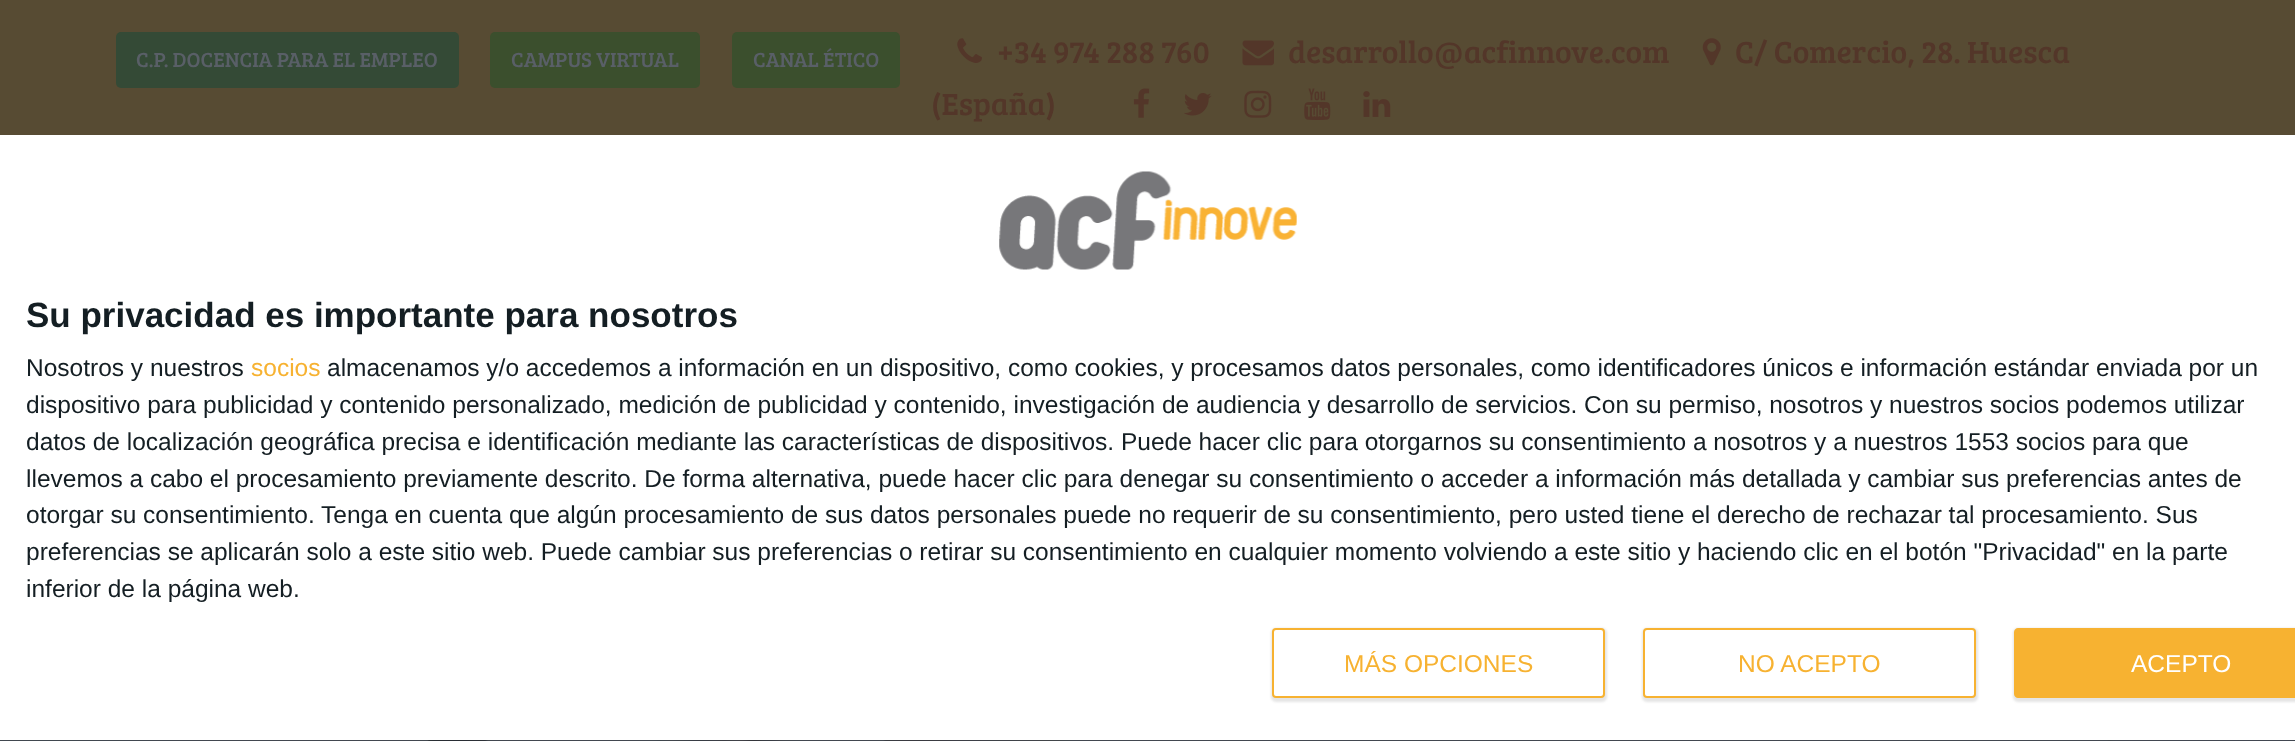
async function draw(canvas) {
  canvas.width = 2295
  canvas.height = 741
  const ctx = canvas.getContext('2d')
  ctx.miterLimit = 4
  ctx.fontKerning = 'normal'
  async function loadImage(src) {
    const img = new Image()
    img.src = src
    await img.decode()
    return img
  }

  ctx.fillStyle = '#424851'
  ctx.fillRect(0, 0, 2295, 741)
  ctx.fillStyle = '#574b33'
  ctx.fillRect(0, 0, 2295, 135)
  ctx.drawImage(await loadImage('image0.png'), 1702, 38, 19, 28)
  ctx.font = '31.5px Bree Serif'
  ctx.fillStyle = '#533629'
  ctx.fillText('C/ Comercio, 28. Huesca', 1735, 63)
  ctx.fillText('(España)', 931, 115)
  ctx.fillStyle = '#344a36'
  ctx.beginPath()
  ctx.roundRect(116, 32, 343, 56, 5)
  ctx.fill()
  ctx.font = '21px Bree Serif'
  ctx.fillStyle = '#595f67'
  ctx.fillText('C.P. DOCENCIA PARA EL EMPLEO', 136, 67)
  ctx.fillStyle = '#3b4f2d'
  ctx.beginPath()
  ctx.roundRect(490, 32, 210, 56, 5)
  ctx.fill()
  ctx.fillStyle = '#595f67'
  ctx.fillText('CAMPUS VIRTUAL', 511, 67)
  ctx.fillStyle = '#3b4f2d'
  ctx.beginPath()
  ctx.roundRect(732, 32, 168, 56, 5)
  ctx.fill()
  ctx.fillStyle = '#595f67'
  ctx.fillText('CANAL ÉTICO', 753, 67)
  ctx.drawImage(await loadImage('image1.png'), 957, 38, 25, 25)
  ctx.font = '31.5px Bree Serif'
  ctx.fillStyle = '#533629'
  ctx.fillText('+34 974 288 760', 997, 63)
  ctx.drawImage(await loadImage('image2.png'), 1242, 40, 32, 26)
  ctx.fillText('desarrollo@acfinnove.com', 1288, 63)
  ctx.drawImage(await loadImage('image3.png'), 1133, 88, 17, 30)
  ctx.drawImage(await loadImage('image4.png'), 1184, 93, 28, 23)
  ctx.drawImage(await loadImage('image5.png'), 1244, 90, 28, 28)
  ctx.drawImage(await loadImage('image6.png'), 1304, 88, 27, 32)
  ctx.drawImage(await loadImage('image7.png'), 1363, 91, 28, 26)
  ctx.drawImage(await loadImage('image8.png'), 0, 740, 2115, 1)
  ctx.fillStyle = '#fff'
  ctx.fillRect(0, 135, 2295, 605)
  ctx.drawImage(await loadImage('image9.png'), 999, 171, 298, 99)
  ctx.font = 'bold 35px Liberation Sans'
  ctx.fillStyle = '#141e23'
  ctx.fillText('Su privacidad es importante para nosotros', 26, 327)
  ctx.font = '24.5px Liberation Sans'
  ctx.fillText('Nosotros y nuestros', 26, 376)
  ctx.fillStyle = '#f7b231'
  ctx.fillText('socios', 251, 376)
  ctx.fillStyle = '#141e23'
  ctx.fillText('almacenamos y/o accedemos a información en un dispositivo, como cookies, y procesamos datos personales, como identificadores únicos e información estándar enviada por un', 327, 376)
  ctx.fillText('dispositivo para publicidad y contenido personalizado, medición de publicidad y contenido, investigación de audiencia y desarrollo de servicios. Con su permiso, nosotros y nuestros socios podemos utilizar', 26, 413)
  ctx.fillText('datos de localización geográfica precisa e identificación mediante las características de dispositivos. Puede hacer clic para otorgarnos su consentimiento a nosotros y a nuestros 1553 socios para que', 26, 450)
  ctx.fillText('llevemos a cabo el procesamiento previamente descrito. De forma alternativa, puede hacer clic para denegar su consentimiento o acceder a información más detallada y cambiar sus preferencias antes de', 26, 487)
  ctx.fillText('otorgar su consentimiento.', 26, 523)
  ctx.fillText('Tenga en cuenta que algún procesamiento de sus datos personales puede no requerir de su consentimiento, pero usted tiene el derecho de rechazar tal procesamiento. Sus', 321, 523)
  ctx.fillText('preferencias se aplicarán solo a este sitio web. Puede cambiar sus preferencias o retirar su consentimiento en cualquier momento volviendo a este sitio y haciendo clic en el botón "Privacidad" en la parte', 26, 560)
  ctx.fillText('inferior de la página web.', 26, 597)
  ctx.fillStyle = '#0000001a'
  ctx.filter = 'blur(1px)'
  ctx.beginPath()
  ctx.roundRect(1271, 628, 336, 74, 5)
  ctx.fill()
  ctx.filter = 'none'
  ctx.fillStyle = '#fff'
  ctx.beginPath()
  ctx.roundRect(1273, 629, 331, 68, 3)
  ctx.fill()
  ctx.strokeStyle = '#f7b231'
  ctx.lineWidth = 2
  ctx.stroke()
  ctx.save()
  ctx.beginPath()
  ctx.rect(1344, 651, 189, 25)
  ctx.clip()
  ctx.fillStyle = '#f7b231'
  ctx.fillText('MÁS OPCIONES', 1344, 672)
  ctx.restore()
  ctx.fillStyle = '#0000001a'
  ctx.filter = 'blur(1px)'
  ctx.beginPath()
  ctx.roundRect(1642, 628, 336, 74, 5)
  ctx.fill()
  ctx.filter = 'none'
  ctx.fillStyle = '#fff'
  ctx.beginPath()
  ctx.roundRect(1644, 629, 331, 68, 3)
  ctx.fill()
  ctx.stroke()
  ctx.fillStyle = '#f7b231'
  ctx.fillText('NO ACEPTO', 1738, 672)
  ctx.fillStyle = '#0000001a'
  ctx.filter = 'blur(1px)'
  ctx.beginPath()
  ctx.roundRect(2013, 628, 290, 74, 5)
  ctx.fill()
  ctx.filter = 'none'
  ctx.fillStyle = '#f7b231'
  ctx.beginPath()
  ctx.moveTo(2018, 628)
  ctx.lineTo(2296, 628)
  ctx.lineTo(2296, 698)
  ctx.lineTo(2018, 698)
  ctx.bezierCurveTo(2016, 698, 2014, 696, 2014, 694)
  ctx.lineTo(2014, 632)
  ctx.bezierCurveTo(2014, 630, 2016, 628, 2018, 628)
  ctx.closePath()
  ctx.fill()
  ctx.fillStyle = '#fff'
  ctx.fillText('ACEPTO', 2131, 672)
}

draw(document.querySelector('canvas'))
